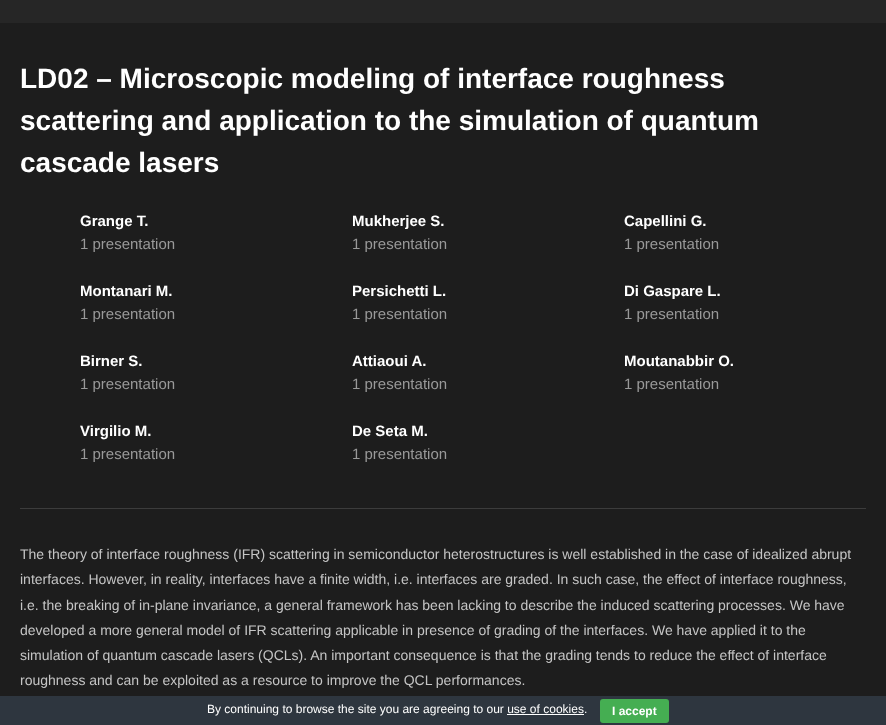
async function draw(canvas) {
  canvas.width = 886
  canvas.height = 725
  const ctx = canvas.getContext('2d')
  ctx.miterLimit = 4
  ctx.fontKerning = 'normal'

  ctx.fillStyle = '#1d1d1d'
  ctx.fillRect(0, 0, 886, 725)
  ctx.fillStyle = '#262626'
  ctx.fillRect(0, 0, 886, 23)
  ctx.font = 'bold 28px Liberation Sans'
  ctx.fillStyle = '#fff'
  ctx.fillText('LD02 – Microscopic modeling of interface roughness', 20, 88)
  ctx.fillText('scattering and application to the simulation of quantum', 20, 130)
  ctx.fillText('cascade lasers', 20, 172)
  ctx.fillStyle = '#3c3c3c'
  ctx.fillRect(20, 508, 846, 1)
  ctx.font = 'bold 15px Liberation Sans'
  ctx.fillStyle = '#fff'
  ctx.fillText('Grange T.', 80, 226)
  ctx.font = '15px Liberation Sans'
  ctx.fillStyle = '#999'
  ctx.fillText('1 presentation', 80, 249)
  ctx.font = 'bold 15px Liberation Sans'
  ctx.fillStyle = '#fff'
  ctx.fillText('Mukherjee S.', 352, 226)
  ctx.font = '15px Liberation Sans'
  ctx.fillStyle = '#999'
  ctx.fillText('1 presentation', 352, 249)
  ctx.font = 'bold 15px Liberation Sans'
  ctx.fillStyle = '#fff'
  ctx.fillText('Capellini G.', 624, 226)
  ctx.font = '15px Liberation Sans'
  ctx.fillStyle = '#999'
  ctx.fillText('1 presentation', 624, 249)
  ctx.font = 'bold 15px Liberation Sans'
  ctx.fillStyle = '#fff'
  ctx.fillText('Montanari M.', 80, 296)
  ctx.font = '15px Liberation Sans'
  ctx.fillStyle = '#999'
  ctx.fillText('1 presentation', 80, 319)
  ctx.font = 'bold 15px Liberation Sans'
  ctx.fillStyle = '#fff'
  ctx.fillText('Persichetti L.', 352, 296)
  ctx.font = '15px Liberation Sans'
  ctx.fillStyle = '#999'
  ctx.fillText('1 presentation', 352, 319)
  ctx.font = 'bold 15px Liberation Sans'
  ctx.fillStyle = '#fff'
  ctx.fillText('Di Gaspare L.', 624, 296)
  ctx.font = '15px Liberation Sans'
  ctx.fillStyle = '#999'
  ctx.fillText('1 presentation', 624, 319)
  ctx.font = 'bold 15px Liberation Sans'
  ctx.fillStyle = '#fff'
  ctx.fillText('Birner S.', 80, 366)
  ctx.font = '15px Liberation Sans'
  ctx.fillStyle = '#999'
  ctx.fillText('1 presentation', 80, 389)
  ctx.font = 'bold 15px Liberation Sans'
  ctx.fillStyle = '#fff'
  ctx.fillText('Attiaoui A.', 352, 366)
  ctx.font = '15px Liberation Sans'
  ctx.fillStyle = '#999'
  ctx.fillText('1 presentation', 352, 389)
  ctx.font = 'bold 15px Liberation Sans'
  ctx.fillStyle = '#fff'
  ctx.fillText('Moutanabbir O.', 624, 366)
  ctx.font = '15px Liberation Sans'
  ctx.fillStyle = '#999'
  ctx.fillText('1 presentation', 624, 389)
  ctx.font = 'bold 15px Liberation Sans'
  ctx.fillStyle = '#fff'
  ctx.fillText('Virgilio M.', 80, 436)
  ctx.font = '15px Liberation Sans'
  ctx.fillStyle = '#999'
  ctx.fillText('1 presentation', 80, 459)
  ctx.font = 'bold 15px Liberation Sans'
  ctx.fillStyle = '#fff'
  ctx.fillText('De Seta M.', 352, 436)
  ctx.font = '15px Liberation Sans'
  ctx.fillStyle = '#999'
  ctx.fillText('1 presentation', 352, 459)
  ctx.font = '14px Liberation Sans'
  ctx.fillStyle = '#c5c5c5'
  ctx.fillText('The theory of interface roughness (IFR) scattering in semiconductor heterostructures is well established in the case of idealized abrupt', 20, 559)
  ctx.fillText('interfaces. However, in reality, interfaces have a finite width, i.e. interfaces are graded. In such case, the effect of interface roughness,', 20, 584)
  ctx.fillText('i.e. the breaking of in-plane invariance, a general framework has been lacking to describe the induced scattering processes. We have', 20, 610)
  ctx.fillText('developed a more general model of IFR scattering applicable in presence of grading of the interfaces. We have applied it to the', 20, 635)
  ctx.fillText('simulation of quantum cascade lasers (QCLs). An important consequence is that the grading tends to reduce the effect of interface', 20, 660)
  ctx.fillText('roughness and can be exploited as a resource to improve the QCL performances.', 20, 685)
  ctx.fillStyle = '#2e363f'
  ctx.fillRect(0, 696, 886, 29)
  ctx.font = '12px Liberation Sans'
  ctx.fillStyle = '#fff'
  ctx.fillText('By continuing to browse the site you are agreeing to our use of cookies.', 207, 713)
  ctx.fillStyle = '#45ae52'
  ctx.beginPath()
  ctx.roundRect(600, 699, 69, 24, 3)
  ctx.fill()
  ctx.font = 'bold 12px Liberation Sans'
  ctx.fillStyle = '#fff'
  ctx.fillText('I accept', 612, 715)
  ctx.fillRect(507, 714, 77, 1)
}

draw(document.querySelector('canvas'))
